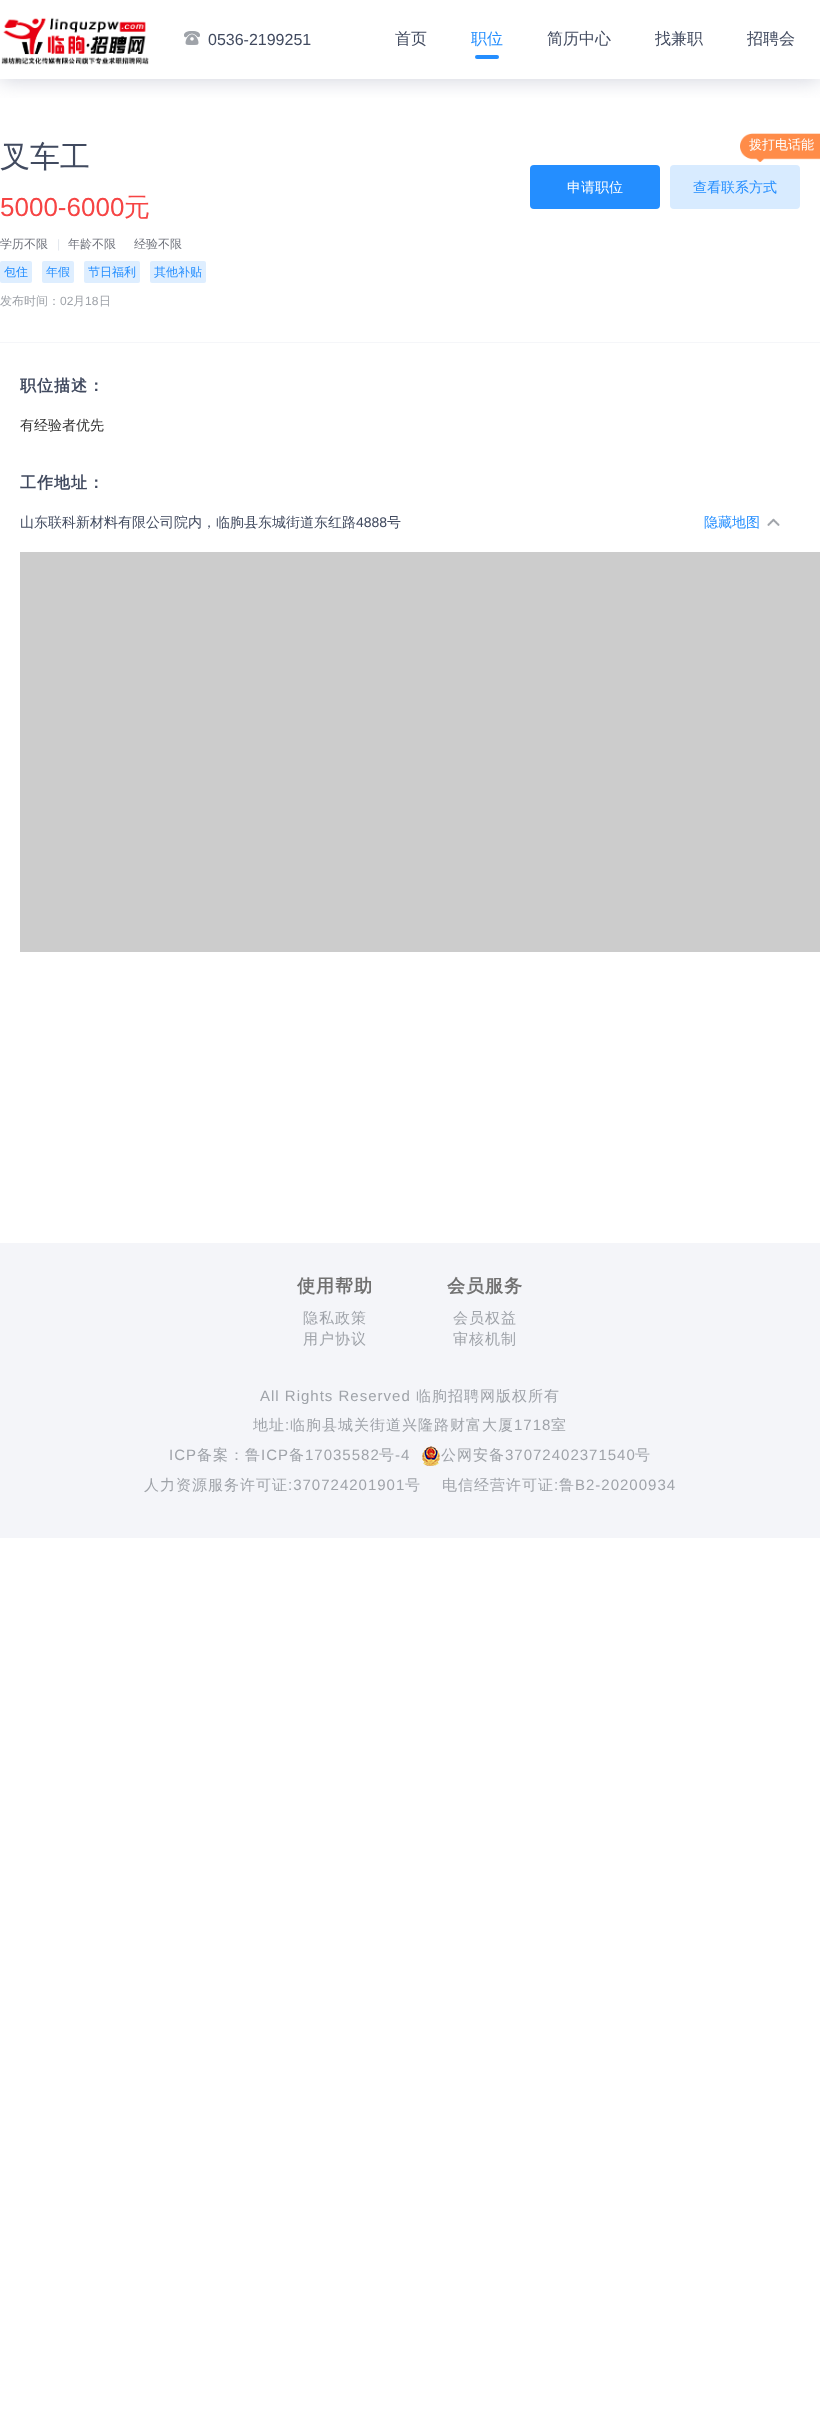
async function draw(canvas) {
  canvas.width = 820
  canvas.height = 2413
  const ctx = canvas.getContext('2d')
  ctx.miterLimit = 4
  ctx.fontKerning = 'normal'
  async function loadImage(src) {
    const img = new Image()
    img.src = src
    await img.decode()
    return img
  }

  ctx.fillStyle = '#fff'
  ctx.fillRect(0, 0, 820, 2413)
  ctx.save()
  ctx.beginPath()
  ctx.rect(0, 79, 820, 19)
  ctx.clip()
  ctx.fillStyle = '#aaadbf80'
  ctx.filter = 'blur(10px)'
  ctx.beginPath()
  ctx.rect(0, 2, 820, 79)
  ctx.fill()
  ctx.filter = 'none'
  ctx.restore()
  ctx.drawImage(await loadImage('image0.png'), 1, 17, 148, 48)
  ctx.drawImage(await loadImage('image1.png'), 184, 31, 16, 14)
  ctx.font = '16px Liberation Sans'
  ctx.fillStyle = '#414a5f'
  ctx.fillText('0536-2199251', 208, 45)
  ctx.font = '500 16px WenQuanYi Zen Hei'
  ctx.fillText('首页', 395, 44)
  ctx.fillStyle = '#248eff'
  ctx.fillText('职位', 471, 44)
  ctx.beginPath()
  ctx.roundRect(475, 55, 24, 4, 2)
  ctx.fill()
  ctx.fillStyle = '#414a5f'
  ctx.fillText('简历中心', 547, 44)
  ctx.fillText('找兼职', 655, 44)
  ctx.fillText('招聘会', 747, 44)
  ctx.fillStyle = '#f5f6f9'
  ctx.fillRect(0, 342, 820, 1)
  ctx.font = '500 30px WenQuanYi Zen Hei'
  ctx.fillStyle = '#414a5f'
  ctx.fillText('叉车工', 0, 167)
  ctx.font = '26px Liberation Sans'
  ctx.fillStyle = '#f64444'
  ctx.fillText('5000-6000', 0, 216)
  ctx.font = '500 26px WenQuanYi Zen Hei'
  ctx.fillText('元', 124, 216)
  ctx.font = '500 12px WenQuanYi Zen Hei'
  ctx.fillStyle = '#6f727b'
  ctx.fillText('学历不限', 0, 248)
  ctx.font = '12px Liberation Sans'
  ctx.fillStyle = '#e3e7ed'
  ctx.fillText('|', 57, 248)
  ctx.font = '500 12px WenQuanYi Zen Hei'
  ctx.fillStyle = '#6f727b'
  ctx.fillText('年龄不限', 68, 248)
  ctx.fillText('经验不限', 134, 248)
  ctx.fillStyle = '#deeeff'
  ctx.beginPath()
  ctx.roundRect(0, 261, 32, 22, 2)
  ctx.fill()
  ctx.fillStyle = '#248eff'
  ctx.fillText('包住', 4, 276)
  ctx.fillStyle = '#deeeff'
  ctx.beginPath()
  ctx.roundRect(42, 261, 32, 22, 2)
  ctx.fill()
  ctx.fillStyle = '#248eff'
  ctx.fillText('年假', 46, 276)
  ctx.fillStyle = '#deeeff'
  ctx.beginPath()
  ctx.roundRect(84, 261, 56, 22, 2)
  ctx.fill()
  ctx.fillStyle = '#248eff'
  ctx.fillText('节日福利', 88, 276)
  ctx.fillStyle = '#deeeff'
  ctx.beginPath()
  ctx.roundRect(150, 261, 56, 22, 2)
  ctx.fill()
  ctx.fillStyle = '#248eff'
  ctx.fillText('其他补贴', 154, 276)
  ctx.fillStyle = '#9fa3a9'
  ctx.fillText('发布时间：', 0, 305)
  ctx.font = '12px Liberation Sans'
  ctx.fillText('02', 60, 305)
  ctx.font = '500 12px WenQuanYi Zen Hei'
  ctx.fillText('月', 73, 305)
  ctx.font = '12px Liberation Sans'
  ctx.fillText('18', 85, 305)
  ctx.font = '500 12px WenQuanYi Zen Hei'
  ctx.fillText('日', 99, 305)
  ctx.drawImage(await loadImage('image2.png'), 740, 133, 80, 29)
  ctx.font = '500 13px WenQuanYi Zen Hei'
  ctx.fillStyle = '#fff'
  ctx.fillText('拨打电话能', 749, 149)
  ctx.fillStyle = '#248eff'
  ctx.beginPath()
  ctx.roundRect(530, 165, 130, 44, 4)
  ctx.fill()
  ctx.font = '500 14px WenQuanYi Zen Hei'
  ctx.fillStyle = '#fff'
  ctx.fillText('申请职位', 567, 192)
  ctx.fillStyle = '#d8ebff'
  ctx.beginPath()
  ctx.roundRect(670, 165, 130, 44, 4)
  ctx.fill()
  ctx.fillStyle = '#248eff'
  ctx.fillText('查看联系方式', 693, 192)
  ctx.letterSpacing = '1px'
  ctx.font = 'bold 16px WenQuanYi Zen Hei'
  ctx.fillStyle = '#414a5f'
  ctx.fillText('职位描述：', 20, 391)
  ctx.letterSpacing = '0px'
  ctx.font = '500 14px WenQuanYi Zen Hei'
  ctx.fillStyle = '#333'
  ctx.fillText('有经验者优先', 20, 430)
  ctx.letterSpacing = '1px'
  ctx.font = 'bold 16px WenQuanYi Zen Hei'
  ctx.fillStyle = '#414a5f'
  ctx.fillText('工作地址：', 20, 488)
  ctx.letterSpacing = '0px'
  ctx.font = '500 14px WenQuanYi Zen Hei'
  ctx.fillText('山东联科新材料有限公司院内，临朐县东城街道东红路', 20, 527)
  ctx.font = '14px Liberation Sans'
  ctx.fillText('4888', 356, 527)
  ctx.font = '500 14px WenQuanYi Zen Hei'
  ctx.fillText('号', 387, 527)
  ctx.fillStyle = '#248eff'
  ctx.fillText('隐藏地图', 704, 527)
  ctx.drawImage(await loadImage('image3.png'), 767, 518, 13, 8)
  ctx.fillStyle = '#ccc'
  ctx.fillRect(20, 552, 800, 400)
  ctx.fillStyle = '#f4f5f9'
  ctx.fillRect(0, 1243, 820, 295)
  ctx.letterSpacing = '1px'
  ctx.font = 'bold 18px WenQuanYi Zen Hei'
  ctx.fillStyle = '#717171'
  ctx.fillText('使用帮助', 297, 1292)
  ctx.font = '500 15px WenQuanYi Zen Hei'
  ctx.fillStyle = '#9fa3a9'
  ctx.fillText('隐私政策', 303, 1323)
  ctx.fillText('用户协议', 303, 1344)
  ctx.font = 'bold 18px WenQuanYi Zen Hei'
  ctx.fillStyle = '#717171'
  ctx.fillText('会员服务', 447, 1292)
  ctx.font = '500 15px WenQuanYi Zen Hei'
  ctx.fillStyle = '#9fa3a9'
  ctx.fillText('会员权益', 453, 1323)
  ctx.fillText('审核机制', 453, 1344)
  ctx.font = '15px Liberation Sans'
  ctx.fillText('All Rights Reserved', 260, 1401)
  ctx.font = '500 15px WenQuanYi Zen Hei'
  ctx.fillText('临朐招聘网版权所有', 416, 1401)
  ctx.fillText('地址', 253, 1430)
  ctx.font = '15px Liberation Sans'
  ctx.fillText(':', 285, 1430)
  ctx.font = '500 15px WenQuanYi Zen Hei'
  ctx.fillText('临朐县城关街道兴隆路财富大厦', 290, 1430)
  ctx.font = '15px Liberation Sans'
  ctx.fillText('1718', 514, 1430)
  ctx.font = '500 15px WenQuanYi Zen Hei'
  ctx.fillText('室', 551, 1430)
  ctx.font = '15px Liberation Sans'
  ctx.fillText('ICP', 169, 1460)
  ctx.font = '500 15px WenQuanYi Zen Hei'
  ctx.fillText('备案：鲁', 197, 1460)
  ctx.font = '15px Liberation Sans'
  ctx.fillText('ICP', 261, 1460)
  ctx.font = '500 15px WenQuanYi Zen Hei'
  ctx.fillText('备', 289, 1460)
  ctx.font = '15px Liberation Sans'
  ctx.fillText('17035582', 305, 1460)
  ctx.font = '500 15px WenQuanYi Zen Hei'
  ctx.fillText('号', 379, 1460)
  ctx.font = '15px Liberation Sans'
  ctx.fillText('-4', 395, 1460)
  ctx.drawImage(await loadImage('image4.png'), 422, 1446, 18, 20)
  ctx.font = '500 15px WenQuanYi Zen Hei'
  ctx.fillText('公网安备', 441, 1460)
  ctx.font = '15px Liberation Sans'
  ctx.fillText('37072402371540', 505, 1460)
  ctx.font = '500 15px WenQuanYi Zen Hei'
  ctx.fillText('号', 635, 1460)
  ctx.fillText('人力资源服务许可证', 144, 1490)
  ctx.font = '15px Liberation Sans'
  ctx.fillText(':370724201901', 288, 1490)
  ctx.font = '500 15px WenQuanYi Zen Hei'
  ctx.fillText('号', 405, 1490)
  ctx.fillText('电信经营许可证', 442, 1490)
  ctx.font = '15px Liberation Sans'
  ctx.fillText(':', 554, 1490)
  ctx.font = '500 15px WenQuanYi Zen Hei'
  ctx.fillText('鲁', 559, 1490)
  ctx.font = '15px Liberation Sans'
  ctx.fillText('B2-20200934', 575, 1490)
}

draw(document.querySelector('canvas'))
